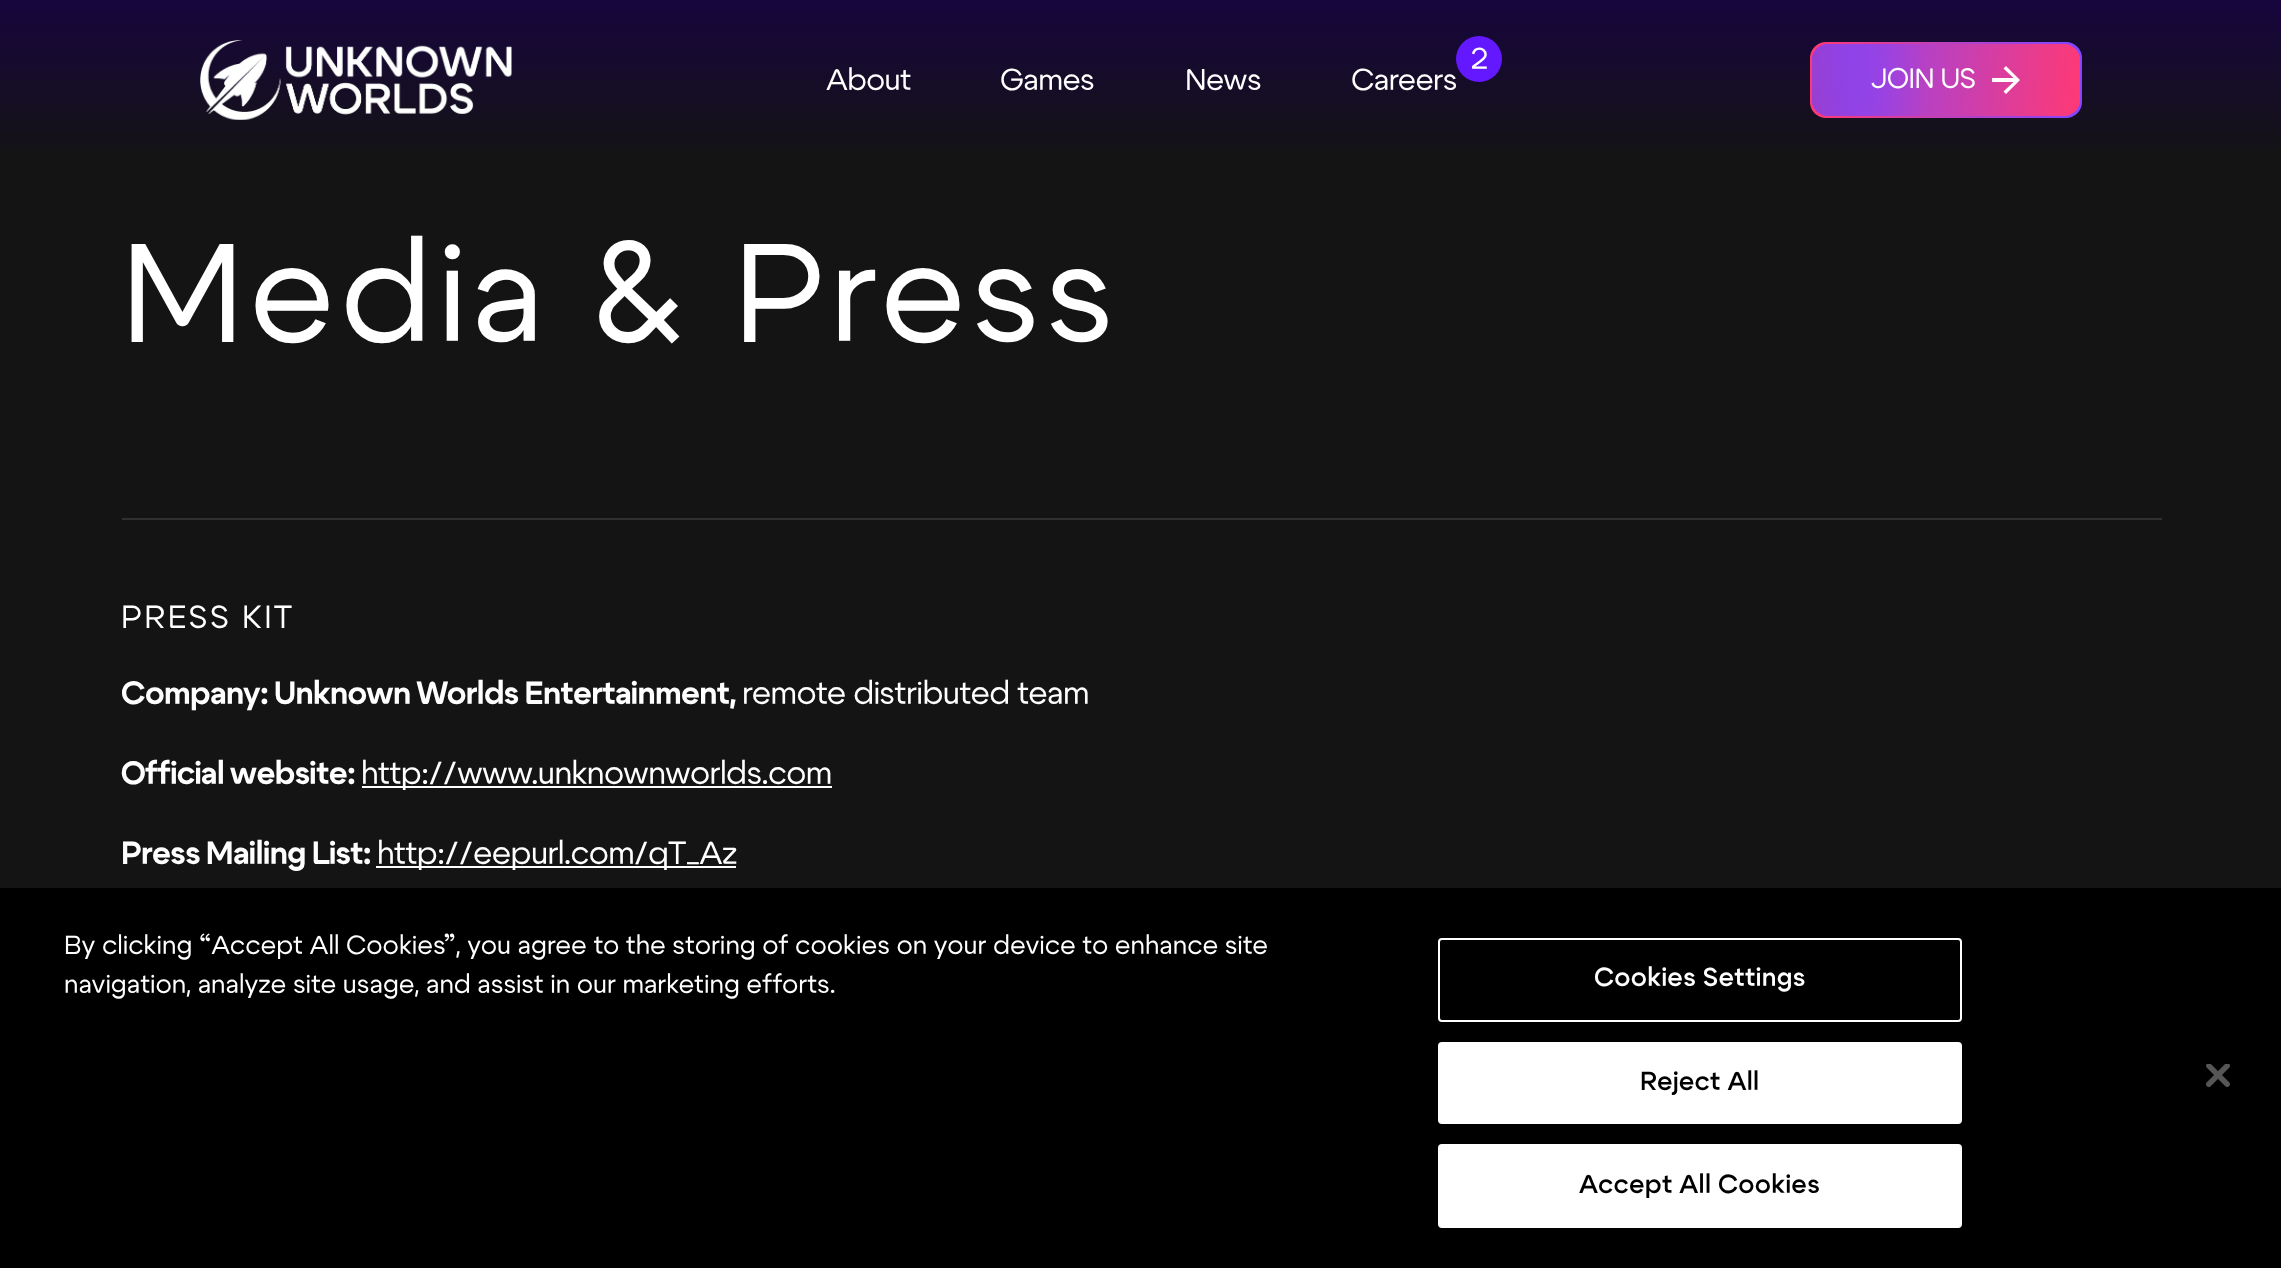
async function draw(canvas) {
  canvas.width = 2281
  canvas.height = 1268
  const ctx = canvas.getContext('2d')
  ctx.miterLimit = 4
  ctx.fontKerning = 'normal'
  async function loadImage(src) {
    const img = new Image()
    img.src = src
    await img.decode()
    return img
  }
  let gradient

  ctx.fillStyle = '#141414'
  ctx.fillRect(0, 0, 2281, 1268)
  gradient = ctx.createLinearGradient(1141, 0, 1141, 160)
  gradient.addColorStop(0, '#17053d')
  gradient.addColorStop(1, '#141414')
  ctx.fillStyle = gradient
  ctx.fillRect(0, 0, 2281, 150)
  ctx.drawImage(await loadImage('image0.png'), 200, 40, 312, 80)
  ctx.letterSpacing = '-0.6px'
  ctx.font = '30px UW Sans'
  ctx.fillStyle = '#fff'
  ctx.fillText('About', 826, 90)
  ctx.fillText('Games', 1000, 90)
  ctx.fillText('News', 1185, 90)
  ctx.fillStyle = '#6418ff'
  ctx.beginPath()
  ctx.arc(1479, 59, 23, 0, 2 * Math.PI)
  ctx.fill()
  ctx.fillStyle = '#fff'
  ctx.fillText('2', 1470, 69)
  ctx.fillText('Careers', 1351, 90)
  gradient = ctx.createLinearGradient(1808, 90, 2084, 70)
  gradient.addColorStop(0.02, '#ff3975')
  gradient.addColorStop(0.95, '#8346fe')
  ctx.fillStyle = gradient
  ctx.beginPath()
  ctx.roundRect(1810, 42, 272, 76, 16)
  ctx.fill()
  gradient = ctx.createLinearGradient(1810, 68, 2082, 92)
  gradient.addColorStop(0, '#8346fe')
  gradient.addColorStop(1, '#ff3975')
  ctx.fillStyle = gradient
  ctx.beginPath()
  ctx.roundRect(1812, 44, 268, 72, 16)
  ctx.fill()
  ctx.drawImage(await loadImage('image1.png'), 1812, 44, 108, 72)
  ctx.font = '28px UW Sans'
  ctx.fillStyle = '#fff'
  ctx.fillText('JOIN US', 1871, 88)
  ctx.beginPath()
  ctx.moveTo(2006, 66)
  ctx.lineTo(2003.5, 68.5)
  ctx.lineTo(2013.5, 78)
  ctx.lineTo(1992, 78)
  ctx.lineTo(1992, 82)
  ctx.lineTo(2013.5, 82)
  ctx.lineTo(2003.5, 91.5)
  ctx.lineTo(2006, 94)
  ctx.lineTo(2020, 80)
  ctx.closePath()
  ctx.fill()
  ctx.fillStyle = '#303030'
  ctx.fillRect(122, 518, 2040, 2)
  ctx.letterSpacing = '5.6px'
  ctx.font = '140px UW Sans'
  ctx.fillStyle = '#fff'
  ctx.fillText('Media & Press', 121, 342)
  ctx.letterSpacing = '2.5px'
  ctx.font = '32px UW Sans'
  ctx.fillText('PRESS KIT', 121, 628)
  ctx.letterSpacing = '-0.6px'
  ctx.font = 'bold 32px UW Sans'
  ctx.fillText('Company: Unknown Worlds Entertainment,', 121, 704)
  ctx.font = '32px UW Sans'
  ctx.fillText('remote distributed team', 742, 704)
  ctx.font = 'bold 32px UW Sans'
  ctx.fillText('Official website:', 121, 784)
  ctx.fillRect(362, 786, 470, 2)
  ctx.font = '32px UW Sans'
  ctx.fillText('http://www.unknownworlds.com', 361, 784)
  ctx.font = 'bold 32px UW Sans'
  ctx.fillText('Press Mailing List:', 121, 864)
  ctx.fillRect(376, 866, 360, 2)
  ctx.font = '32px UW Sans'
  ctx.fillText('http://eepurl.com/qT_Az', 377, 864)
  ctx.fillStyle = '#000'
  ctx.fillRect(0, 888, 2281, 380)
  ctx.letterSpacing = '0px'
  ctx.font = '26px UW Sans'
  ctx.fillStyle = '#fff'
  ctx.fillText('By clicking “Accept All Cookies”, you agree to the storing of cookies on your device to enhance site', 64, 954)
  ctx.fillText('navigation, analyze site usage, and assist in our marketing efforts.', 64, 993)
  ctx.beginPath()
  ctx.roundRect(1439, 939, 522, 82, 3)
  ctx.strokeStyle = '#fff'
  ctx.lineWidth = 2
  ctx.stroke()
  ctx.letterSpacing = '0.25px'
  ctx.font = '600 26px UW Sans'
  ctx.fillText('Cookies Settings', 1594, 986)
  ctx.beginPath()
  ctx.roundRect(1439, 1043, 522, 80, 3)
  ctx.fill()
  ctx.stroke()
  ctx.fillStyle = '#000'
  ctx.fillText('Reject All', 1640, 1090)
  ctx.fillStyle = '#fff'
  ctx.beginPath()
  ctx.roundRect(1439, 1145, 522, 82, 3)
  ctx.fill()
  ctx.stroke()
  ctx.fillStyle = '#000'
  ctx.fillText('Accept All Cookies', 1579, 1193)
  ctx.drawImage(await loadImage('image2.png'), 2206, 1064, 24, 23)
}

draw(document.querySelector('canvas'))
